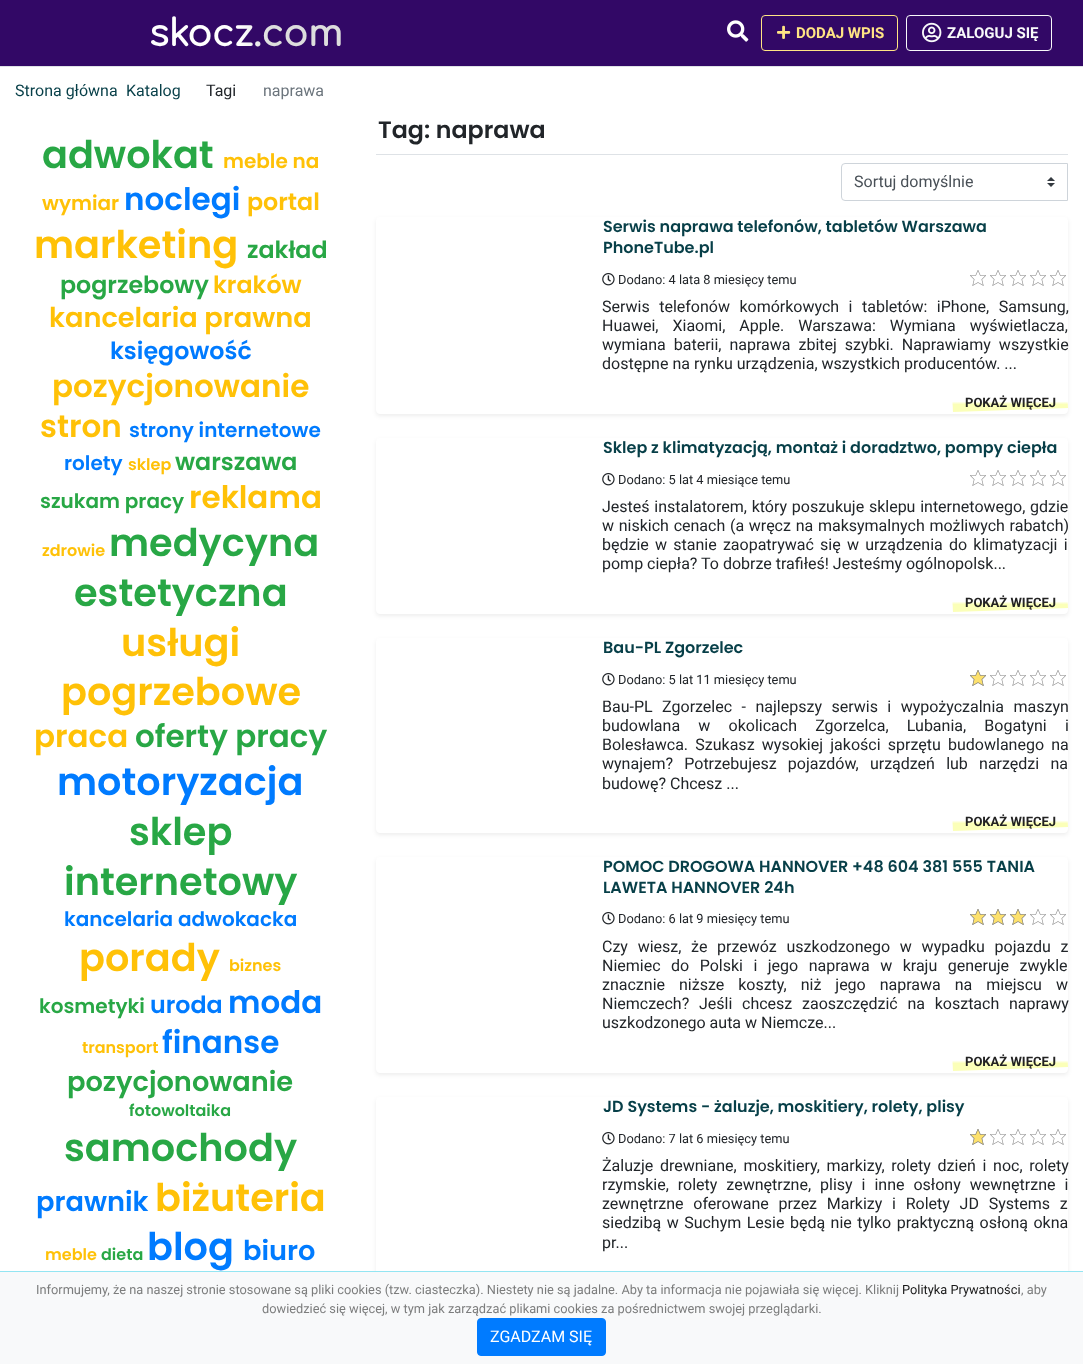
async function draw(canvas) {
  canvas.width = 1083
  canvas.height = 1364
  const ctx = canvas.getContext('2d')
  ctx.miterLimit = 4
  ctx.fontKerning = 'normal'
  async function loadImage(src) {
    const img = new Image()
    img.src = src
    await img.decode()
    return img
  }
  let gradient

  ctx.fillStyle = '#fff'
  ctx.fillRect(0, 0, 1083, 1364)
  ctx.fillStyle = '#320866'
  ctx.fillRect(0, 0, 1083, 66)
  ctx.fillStyle = '#dee2e6'
  ctx.fillRect(0, 66, 1083, 1)
  ctx.letterSpacing = '-1px'
  ctx.font = 'bold 38px Comfortaa'
  gradient = ctx.createLinearGradient(149, 34, 342, 34)
  gradient.addColorStop(0, '#fff')
  gradient.addColorStop(0.47, '#fff')
  gradient.addColorStop(0.63, '#ddd')
  gradient.addColorStop(1, '#ddd')
  ctx.fillStyle = gradient
  ctx.fillText('skocz.com', 149, 46)
  ctx.drawImage(await loadImage('image0.png'), 727, 20, 22, 22)
  ctx.beginPath()
  ctx.roundRect(761.5, 15.5, 136, 35, 3.5)
  ctx.strokeStyle = '#ffe484'
  ctx.stroke()
  ctx.drawImage(await loadImage('image1.png'), 777, 25, 14, 14)
  ctx.letterSpacing = '0px'
  ctx.font = 'bold 15px Roboto'
  ctx.fillStyle = '#ffe484'
  ctx.fillText('DODAJ WPIS', 796, 38)
  ctx.beginPath()
  ctx.roundRect(906.5, 15.5, 145, 35, 3.5)
  ctx.strokeStyle = '#f8f9fa'
  ctx.stroke()
  ctx.drawImage(await loadImage('image2.png'), 922, 22, 20, 21)
  ctx.fillStyle = '#f8f9fa'
  ctx.fillText('ZALOGUJ SIĘ', 947, 38)
  ctx.font = '16px Roboto'
  ctx.fillStyle = '#073f48'
  ctx.fillText('Strona główna', 15, 96)
  ctx.fillText('Katalog', 126, 96)
  ctx.fillStyle = '#212529'
  ctx.fillText('Tagi', 206, 96)
  ctx.fillStyle = '#6c757d'
  ctx.fillText('naprawa', 263, 96)
  ctx.font = '600 38.25px Poppins'
  ctx.fillStyle = '#28a745'
  ctx.fillText('adwokat', 42, 168)
  ctx.font = '600 20px Poppins'
  ctx.fillStyle = '#ffc107'
  ctx.fillText('meble na', 223, 168)
  ctx.fillText('wymiar', 42, 210)
  ctx.font = '600 31px Poppins'
  ctx.fillStyle = '#007bff'
  ctx.fillText('noclegi', 124, 210)
  ctx.font = '600 23.75px Poppins'
  ctx.fillStyle = '#ffc107'
  ctx.fillText('portal', 247, 210)
  ctx.font = '600 38.25px Poppins'
  ctx.fillText('marketing', 34, 258)
  ctx.font = '600 23.75px Poppins'
  ctx.fillStyle = '#28a745'
  ctx.fillText('zakład', 247, 258)
  ctx.fillText('pogrzebowy', 60, 293)
  ctx.fillStyle = '#ffc107'
  ctx.fillText('kraków', 213, 293)
  ctx.font = '600 27.25px Poppins'
  ctx.fillText('kancelaria prawna', 49, 327)
  ctx.font = '600 23.75px Poppins'
  ctx.fillStyle = '#007bff'
  ctx.fillText('księgowość', 110, 359)
  ctx.font = '600 31px Poppins'
  ctx.fillStyle = '#ffc107'
  ctx.fillText('pozycjonowanie', 52, 397)
  ctx.fillText('stron', 40, 437)
  ctx.font = '600 20px Poppins'
  ctx.fillStyle = '#007bff'
  ctx.fillText('strony internetowe', 129, 437)
  ctx.fillText('rolety', 64, 470)
  ctx.font = '600 16px Poppins'
  ctx.fillStyle = '#ffc107'
  ctx.fillText('sklep', 128, 470)
  ctx.font = '600 23.75px Poppins'
  ctx.fillStyle = '#28a745'
  ctx.fillText('warszawa', 175, 470)
  ctx.font = '600 20px Poppins'
  ctx.fillText('szukam pracy', 40, 508)
  ctx.font = '600 31px Poppins'
  ctx.fillStyle = '#ffc107'
  ctx.fillText('reklama', 189, 508)
  ctx.font = '600 16px Poppins'
  ctx.fillText('zdrowie', 42, 556)
  ctx.font = '600 38.25px Poppins'
  ctx.fillStyle = '#28a745'
  ctx.fillText('medycyna', 109, 556)
  ctx.fillText('estetyczna', 74, 606)
  ctx.fillStyle = '#ffc107'
  ctx.fillText('usługi', 121, 656)
  ctx.fillText('pogrzebowe', 61, 705)
  ctx.font = '600 31px Poppins'
  ctx.fillText('praca', 34, 747)
  ctx.fillStyle = '#28a745'
  ctx.fillText('oferty pracy', 135, 747)
  ctx.font = '600 38.25px Poppins'
  ctx.fillStyle = '#007bff'
  ctx.fillText('motoryzacja', 57, 795)
  ctx.fillStyle = '#28a745'
  ctx.fillText('sklep', 129, 845)
  ctx.fillText('internetowy', 64, 895)
  ctx.font = '600 20px Poppins'
  ctx.fillStyle = '#007bff'
  ctx.fillText('kancelaria adwokacka', 64, 926)
  ctx.font = '600 38.25px Poppins'
  ctx.fillStyle = '#ffc107'
  ctx.fillText('porady', 79, 971)
  ctx.font = '600 16px Poppins'
  ctx.fillText('biznes', 229, 971)
  ctx.font = '600 20px Poppins'
  ctx.fillStyle = '#28a745'
  ctx.fillText('kosmetyki', 39, 1013)
  ctx.font = '600 23.75px Poppins'
  ctx.fillStyle = '#007bff'
  ctx.fillText('uroda', 150, 1013)
  ctx.font = '600 31px Poppins'
  ctx.fillText('moda', 228, 1013)
  ctx.font = '600 16px Poppins'
  ctx.fillStyle = '#ffc107'
  ctx.fillText('transport', 82, 1053)
  ctx.font = '600 31px Poppins'
  ctx.fillStyle = '#007bff'
  ctx.fillText('finanse', 162, 1053)
  ctx.font = '600 27.25px Poppins'
  ctx.fillStyle = '#28a745'
  ctx.fillText('pozycjonowanie', 67, 1091)
  ctx.font = '600 16px Poppins'
  ctx.fillText('fotowoltaika', 129, 1116)
  ctx.font = '600 38.25px Poppins'
  ctx.fillText('samochody', 64, 1161)
  ctx.font = '600 27.25px Poppins'
  ctx.fillStyle = '#007bff'
  ctx.fillText('prawnik', 36, 1211)
  ctx.font = '600 38.25px Poppins'
  ctx.fillStyle = '#ffc107'
  ctx.fillText('biżuteria', 155, 1211)
  ctx.font = '600 16px Poppins'
  ctx.fillText('meble', 45, 1260)
  ctx.fillStyle = '#28a745'
  ctx.fillText('dieta', 101, 1260)
  ctx.font = '600 38.25px Poppins'
  ctx.fillStyle = '#007bff'
  ctx.fillText('blog', 147, 1260)
  ctx.font = '600 27.25px Poppins'
  ctx.fillText('biuro', 243, 1260)
  ctx.fillStyle = '#dee2e6'
  ctx.fillRect(376, 154, 692, 1)
  ctx.font = '600 23.75px Poppins'
  ctx.fillStyle = '#212529'
  ctx.fillText('Tag: naprawa', 378, 138)
  ctx.drawImage(await loadImage('image3.png'), 1047, 177, 8, 10)
  ctx.beginPath()
  ctx.roundRect(841.5, 163.5, 226, 37, [3.5, 0, 0, 3.5])
  ctx.strokeStyle = '#ced4da'
  ctx.stroke()
  ctx.font = '16px Roboto'
  ctx.fillStyle = '#495057'
  ctx.fillText('Sortuj domyślnie', 854, 187)
  ctx.save()
  ctx.beginPath()
  ctx.moveTo(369, 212)
  ctx.lineTo(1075, 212)
  ctx.lineTo(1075, 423)
  ctx.lineTo(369, 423)
  ctx.closePath()
  ctx.moveTo(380, 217)
  ctx.lineTo(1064, 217)
  ctx.bezierCurveTo(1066, 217, 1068, 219, 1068, 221)
  ctx.lineTo(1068, 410)
  ctx.bezierCurveTo(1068, 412, 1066, 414, 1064, 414)
  ctx.lineTo(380, 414)
  ctx.bezierCurveTo(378, 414, 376, 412, 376, 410)
  ctx.lineTo(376, 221)
  ctx.bezierCurveTo(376, 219, 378, 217, 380, 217)
  ctx.closePath()
  ctx.clip('evenodd')
  ctx.fillStyle = '#00000012'
  ctx.filter = 'blur(2px)'
  ctx.beginPath()
  ctx.roundRect(376, 219, 692, 197, 4)
  ctx.fill()
  ctx.filter = 'none'
  ctx.restore()
  ctx.font = '600 16px Poppins'
  ctx.fillStyle = '#073f48'
  ctx.fillText('Serwis naprawa telefonów, tabletów Warszawa', 603, 232)
  ctx.fillText('PhoneTube.pl', 603, 253)
  ctx.drawImage(await loadImage('image4.png'), 602, 273, 13, 13)
  ctx.font = '12.8px Roboto'
  ctx.fillStyle = '#212529'
  ctx.fillText('Dodano: 4 lata 8 miesięcy temu', 618, 284)
  ctx.drawImage(await loadImage('image5.png'), 970, 270, 16, 16)
  ctx.drawImage(await loadImage('image5.png'), 990, 270, 16, 16)
  ctx.drawImage(await loadImage('image5.png'), 1010, 270, 16, 16)
  ctx.drawImage(await loadImage('image5.png'), 1030, 270, 16, 16)
  ctx.drawImage(await loadImage('image5.png'), 1050, 270, 16, 16)
  ctx.wordSpacing = '5.5px'
  ctx.font = '16px Roboto'
  ctx.fillText('Serwis telefonów komórkowych i tabletów: iPhone, Samsung,', 602, 312)
  ctx.wordSpacing = '10px'
  ctx.fillText('Huawei, Xiaomi, Apple. Warszawa: Wymiana wyświetlacza,', 602, 331)
  ctx.wordSpacing = '4px'
  ctx.fillText('wymiana baterii, naprawa zbitej szybki. Naprawiamy wszystkie', 602, 350)
  ctx.wordSpacing = '0px'
  ctx.fillText('dostępne na rynku urządzenia, wszystkich producentów. ...', 602, 369)
  gradient = ctx.createLinearGradient(1010, 410, 1010, 391)
  gradient.addColorStop(0.3, '#fbffb8')
  gradient.addColorStop(0.45, '#fff')
  ctx.fillStyle = gradient
  ctx.beginPath()
  ctx.moveTo(952, 393)
  ctx.lineTo(1067, 389)
  ctx.lineTo(1068, 408)
  ctx.lineTo(953, 412)
  ctx.closePath()
  ctx.fill()
  ctx.font = 'bold 13px Roboto'
  ctx.fillStyle = '#222'
  ctx.fillText('POKAŻ WIĘCEJ', 965, 407)
  ctx.save()
  ctx.beginPath()
  ctx.moveTo(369, 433)
  ctx.lineTo(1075, 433)
  ctx.lineTo(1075, 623)
  ctx.lineTo(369, 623)
  ctx.closePath()
  ctx.moveTo(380, 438)
  ctx.lineTo(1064, 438)
  ctx.bezierCurveTo(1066, 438, 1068, 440, 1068, 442)
  ctx.lineTo(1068, 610)
  ctx.bezierCurveTo(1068, 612, 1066, 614, 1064, 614)
  ctx.lineTo(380, 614)
  ctx.bezierCurveTo(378, 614, 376, 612, 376, 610)
  ctx.lineTo(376, 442)
  ctx.bezierCurveTo(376, 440, 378, 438, 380, 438)
  ctx.closePath()
  ctx.clip('evenodd')
  ctx.fillStyle = '#00000012'
  ctx.filter = 'blur(2px)'
  ctx.beginPath()
  ctx.roundRect(376, 440, 692, 176, 4)
  ctx.fill()
  ctx.filter = 'none'
  ctx.restore()
  ctx.font = '600 16px Poppins'
  ctx.fillStyle = '#073f48'
  ctx.fillText('Sklep z klimatyzacją, montaż i doradztwo, pompy ciepła', 603, 453)
  ctx.drawImage(await loadImage('image4.png'), 602, 473, 13, 13)
  ctx.font = '12.8px Roboto'
  ctx.fillStyle = '#212529'
  ctx.fillText('Dodano: 5 lat 4 miesiące temu', 618, 484)
  ctx.drawImage(await loadImage('image5.png'), 970, 470, 16, 16)
  ctx.drawImage(await loadImage('image5.png'), 990, 470, 16, 16)
  ctx.drawImage(await loadImage('image5.png'), 1010, 470, 16, 16)
  ctx.drawImage(await loadImage('image5.png'), 1030, 470, 16, 16)
  ctx.drawImage(await loadImage('image5.png'), 1050, 470, 16, 16)
  ctx.wordSpacing = '0.75px'
  ctx.font = '16px Roboto'
  ctx.fillText('Jesteś instalatorem, który poszukuje sklepu internetowego, gdzie', 602, 512)
  ctx.fillText('w niskich cenach (a wręcz na maksymalnych możliwych rabatch)', 602, 531)
  ctx.wordSpacing = '2.25px'
  ctx.fillText('będzie w stanie zaopatrywać się w urządzenia do klimatyzacji i', 602, 550)
  ctx.wordSpacing = '0px'
  ctx.fillText('pomp ciepła? To dobrze trafiłeś! Jesteśmy ogólnopolsk...', 602, 569)
  gradient = ctx.createLinearGradient(1010, 610, 1010, 591)
  gradient.addColorStop(0.3, '#fbffb8')
  gradient.addColorStop(0.45, '#fff')
  ctx.fillStyle = gradient
  ctx.beginPath()
  ctx.moveTo(952, 593)
  ctx.lineTo(1067, 589)
  ctx.lineTo(1068, 608)
  ctx.lineTo(953, 612)
  ctx.closePath()
  ctx.fill()
  ctx.font = 'bold 13px Roboto'
  ctx.fillStyle = '#222'
  ctx.fillText('POKAŻ WIĘCEJ', 965, 607)
  ctx.save()
  ctx.beginPath()
  ctx.moveTo(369, 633)
  ctx.lineTo(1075, 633)
  ctx.lineTo(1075, 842)
  ctx.lineTo(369, 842)
  ctx.closePath()
  ctx.moveTo(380, 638)
  ctx.lineTo(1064, 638)
  ctx.bezierCurveTo(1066, 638, 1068, 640, 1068, 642)
  ctx.lineTo(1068, 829)
  ctx.bezierCurveTo(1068, 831, 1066, 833, 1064, 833)
  ctx.lineTo(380, 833)
  ctx.bezierCurveTo(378, 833, 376, 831, 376, 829)
  ctx.lineTo(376, 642)
  ctx.bezierCurveTo(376, 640, 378, 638, 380, 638)
  ctx.closePath()
  ctx.clip('evenodd')
  ctx.fillStyle = '#00000012'
  ctx.filter = 'blur(2px)'
  ctx.beginPath()
  ctx.roundRect(376, 640, 692, 195, 4)
  ctx.fill()
  ctx.filter = 'none'
  ctx.restore()
  ctx.font = '600 16px Poppins'
  ctx.fillStyle = '#073f48'
  ctx.fillText('Bau-PL Zgorzelec', 603, 653)
  ctx.drawImage(await loadImage('image4.png'), 602, 673, 13, 13)
  ctx.font = '12.8px Roboto'
  ctx.fillStyle = '#212529'
  ctx.fillText('Dodano: 5 lat 11 miesięcy temu', 618, 684)
  ctx.drawImage(await loadImage('image5.png'), 970, 670, 16, 16)
  ctx.drawImage(await loadImage('image5.png'), 990, 670, 16, 16)
  ctx.drawImage(await loadImage('image5.png'), 1010, 670, 16, 16)
  ctx.drawImage(await loadImage('image5.png'), 1030, 670, 16, 16)
  ctx.drawImage(await loadImage('image5.png'), 1050, 670, 16, 16)
  ctx.drawImage(await loadImage('image6.png'), 970, 670, 16, 16)
  ctx.wordSpacing = '5.5px'
  ctx.font = '16px Roboto'
  ctx.fillText('Bau-PL Zgorzelec - najlepszy serwis i wypożyczalnia maszyn', 602, 712)
  ctx.wordSpacing = '14.25px'
  ctx.fillText('budowlana w okolicach Zgorzelca, Lubania, Bogatyni i', 602, 731)
  ctx.wordSpacing = '3.25px'
  ctx.fillText('Bolesławca. Szukasz wysokiej jakości sprzętu budowlanego na', 602, 750)
  ctx.wordSpacing = '7.25px'
  ctx.fillText('wynajem? Potrzebujesz pojazdów, urządzeń lub narzędzi na', 602, 769)
  ctx.wordSpacing = '0px'
  ctx.fillText('budowę? Chcesz ...', 602, 789)
  gradient = ctx.createLinearGradient(1010, 829, 1010, 810)
  gradient.addColorStop(0.3, '#fbffb8')
  gradient.addColorStop(0.45, '#fff')
  ctx.fillStyle = gradient
  ctx.beginPath()
  ctx.moveTo(952, 812)
  ctx.lineTo(1067, 808)
  ctx.lineTo(1068, 827)
  ctx.lineTo(953, 831)
  ctx.closePath()
  ctx.fill()
  ctx.font = 'bold 13px Roboto'
  ctx.fillStyle = '#222'
  ctx.fillText('POKAŻ WIĘCEJ', 965, 826)
  ctx.save()
  ctx.beginPath()
  ctx.moveTo(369, 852)
  ctx.lineTo(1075, 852)
  ctx.lineTo(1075, 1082)
  ctx.lineTo(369, 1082)
  ctx.closePath()
  ctx.moveTo(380, 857)
  ctx.lineTo(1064, 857)
  ctx.bezierCurveTo(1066, 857, 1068, 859, 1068, 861)
  ctx.lineTo(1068, 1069)
  ctx.bezierCurveTo(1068, 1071, 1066, 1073, 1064, 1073)
  ctx.lineTo(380, 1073)
  ctx.bezierCurveTo(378, 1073, 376, 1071, 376, 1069)
  ctx.lineTo(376, 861)
  ctx.bezierCurveTo(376, 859, 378, 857, 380, 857)
  ctx.closePath()
  ctx.clip('evenodd')
  ctx.fillStyle = '#00000012'
  ctx.filter = 'blur(2px)'
  ctx.beginPath()
  ctx.roundRect(376, 859, 692, 216, 4)
  ctx.fill()
  ctx.filter = 'none'
  ctx.restore()
  ctx.font = '600 16px Poppins'
  ctx.fillStyle = '#073f48'
  ctx.fillText('POMOC DROGOWA HANNOVER +48 604 381 555 TANIA', 603, 872)
  ctx.fillText('LAWETA HANNOVER 24h', 603, 893)
  ctx.drawImage(await loadImage('image4.png'), 602, 912, 13, 13)
  ctx.font = '12.8px Roboto'
  ctx.fillStyle = '#212529'
  ctx.fillText('Dodano: 6 lat 9 miesięcy temu', 618, 923)
  ctx.drawImage(await loadImage('image5.png'), 970, 909, 16, 16)
  ctx.drawImage(await loadImage('image5.png'), 990, 909, 16, 16)
  ctx.drawImage(await loadImage('image5.png'), 1010, 909, 16, 16)
  ctx.drawImage(await loadImage('image5.png'), 1030, 909, 16, 16)
  ctx.drawImage(await loadImage('image5.png'), 1050, 909, 16, 16)
  ctx.drawImage(await loadImage('image6.png'), 970, 909, 16, 16)
  ctx.drawImage(await loadImage('image6.png'), 990, 909, 16, 16)
  ctx.drawImage(await loadImage('image6.png'), 1010, 909, 16, 16)
  ctx.wordSpacing = '5.75px'
  ctx.font = '16px Roboto'
  ctx.fillText('Czy wiesz, że przewóz uszkodzonego w wypadku pojazdu z', 602, 952)
  ctx.wordSpacing = '6.5px'
  ctx.fillText('Niemiec do Polski i jego naprawa w kraju generuje zwykle', 602, 971)
  ctx.wordSpacing = '10px'
  ctx.fillText('znacznie niższe koszty, niż jego naprawa na miejscu w', 602, 990)
  ctx.wordSpacing = '5.75px'
  ctx.fillText('Niemczech? Jeśli chcesz zaoszczędzić na kosztach naprawy', 602, 1009)
  ctx.wordSpacing = '0px'
  ctx.fillText('uszkodzonego auta w Niemcze...', 602, 1028)
  gradient = ctx.createLinearGradient(1010, 1069, 1010, 1050)
  gradient.addColorStop(0.3, '#fbffb8')
  gradient.addColorStop(0.45, '#fff')
  ctx.fillStyle = gradient
  ctx.beginPath()
  ctx.moveTo(952, 1052)
  ctx.lineTo(1067, 1048)
  ctx.lineTo(1068, 1067)
  ctx.lineTo(953, 1071)
  ctx.closePath()
  ctx.fill()
  ctx.font = 'bold 13px Roboto'
  ctx.fillStyle = '#222'
  ctx.fillText('POKAŻ WIĘCEJ', 965, 1066)
  ctx.save()
  ctx.beginPath()
  ctx.moveTo(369, 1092)
  ctx.lineTo(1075, 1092)
  ctx.lineTo(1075, 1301)
  ctx.lineTo(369, 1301)
  ctx.closePath()
  ctx.moveTo(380, 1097)
  ctx.lineTo(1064, 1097)
  ctx.bezierCurveTo(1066, 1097, 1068, 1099, 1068, 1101)
  ctx.lineTo(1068, 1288)
  ctx.bezierCurveTo(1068, 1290, 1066, 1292, 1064, 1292)
  ctx.lineTo(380, 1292)
  ctx.bezierCurveTo(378, 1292, 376, 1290, 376, 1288)
  ctx.lineTo(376, 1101)
  ctx.bezierCurveTo(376, 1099, 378, 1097, 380, 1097)
  ctx.closePath()
  ctx.clip('evenodd')
  ctx.fillStyle = '#00000012'
  ctx.filter = 'blur(2px)'
  ctx.beginPath()
  ctx.roundRect(376, 1099, 692, 195, 4)
  ctx.fill()
  ctx.filter = 'none'
  ctx.restore()
  ctx.font = '600 16px Poppins'
  ctx.fillStyle = '#073f48'
  ctx.fillText('JD Systems - żaluzje, moskitiery, rolety, plisy', 603, 1112)
  ctx.drawImage(await loadImage('image4.png'), 602, 1132, 13, 13)
  ctx.font = '12.8px Roboto'
  ctx.fillStyle = '#212529'
  ctx.fillText('Dodano: 7 lat 6 miesięcy temu', 618, 1143)
  ctx.drawImage(await loadImage('image5.png'), 970, 1129, 16, 16)
  ctx.drawImage(await loadImage('image5.png'), 990, 1129, 16, 16)
  ctx.drawImage(await loadImage('image5.png'), 1010, 1129, 16, 16)
  ctx.drawImage(await loadImage('image5.png'), 1030, 1129, 16, 16)
  ctx.drawImage(await loadImage('image5.png'), 1050, 1129, 16, 16)
  ctx.drawImage(await loadImage('image6.png'), 970, 1129, 16, 16)
  ctx.wordSpacing = '2.75px'
  ctx.font = '16px Roboto'
  ctx.fillText('Żaluzje drewniane, moskitiery, markizy, rolety dzień i noc, rolety', 602, 1171)
  ctx.wordSpacing = '5px'
  ctx.fillText('rzymskie, rolety zewnętrzne, plisy i inne osłony wewnętrzne i', 602, 1190)
  ctx.wordSpacing = '5.75px'
  ctx.fillText('zewnętrzne oferowane przez Markizy i Rolety JD Systems z', 602, 1209)
  ctx.wordSpacing = '1.5px'
  ctx.fillText('siedzibą w Suchym Lesie będą nie tylko praktyczną osłoną okna', 602, 1228)
  ctx.wordSpacing = '0px'
  ctx.fillText('pr...', 602, 1248)
  gradient = ctx.createLinearGradient(1010, 1288, 1010, 1269)
  gradient.addColorStop(0.3, '#fbffb8')
  gradient.addColorStop(0.45, '#fff')
  ctx.fillStyle = gradient
  ctx.beginPath()
  ctx.moveTo(952, 1271)
  ctx.lineTo(1067, 1267)
  ctx.lineTo(1068, 1286)
  ctx.lineTo(953, 1290)
  ctx.closePath()
  ctx.fill()
  ctx.fillStyle = '#f8f9fa'
  ctx.fillRect(0, 1272, 1083, 92)
  ctx.fillStyle = '#93e5f2'
  ctx.fillRect(0, 1271, 1083, 1)
  ctx.font = '12.8px Roboto'
  ctx.fillStyle = '#7c7d7d'
  ctx.fillText('Informujemy, że na naszej stronie stosowane są pliki cookies (tzw. ciasteczka). Niestety nie są jadalne. Aby ta informacja nie pojawiała się więcej. Kliknij', 36, 1294)
  ctx.fillStyle = '#191919'
  ctx.fillText('Polityka Prywatności', 902, 1294)
  ctx.fillStyle = '#7c7d7d'
  ctx.fillText(', aby', 1021, 1294)
  ctx.fillText('dowiedzieć się więcej, w tym jak zarządzać plikami cookies za pośrednictwem swojej przeglądarki.', 262, 1313)
  ctx.fillStyle = '#007bff'
  ctx.beginPath()
  ctx.roundRect(477.5, 1318.5, 128, 37, 3.5)
  ctx.fill()
  ctx.strokeStyle = '#007bff'
  ctx.stroke()
  ctx.font = '16px Roboto'
  ctx.fillStyle = '#fff'
  ctx.fillText('ZGADZAM SIĘ', 490, 1342)
}

draw(document.querySelector('canvas'))
